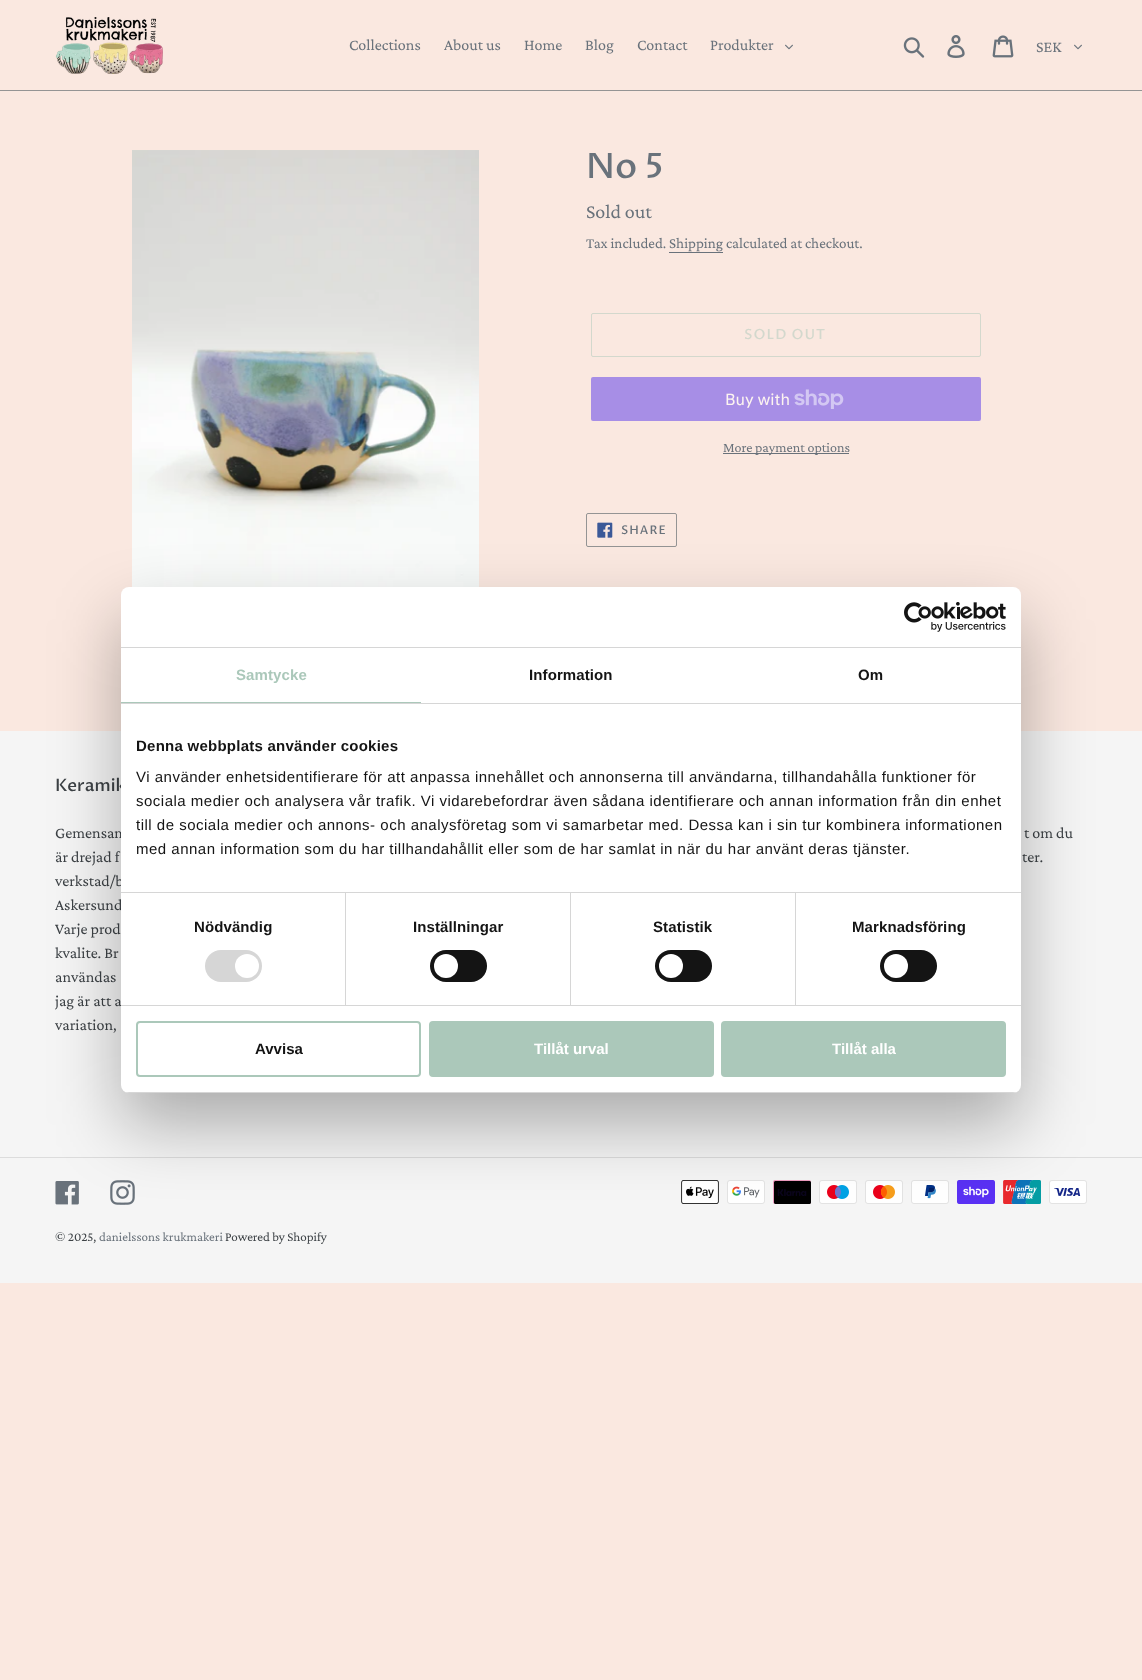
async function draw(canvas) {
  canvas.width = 1142
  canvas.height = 1680
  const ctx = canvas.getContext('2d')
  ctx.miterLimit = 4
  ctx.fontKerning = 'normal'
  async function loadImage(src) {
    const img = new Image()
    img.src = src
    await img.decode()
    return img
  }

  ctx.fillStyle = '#fae8e0'
  ctx.fillRect(0, 0, 1142, 1680)
  ctx.fillStyle = '#949494'
  ctx.fillRect(0, 90, 1142, 1)
  ctx.drawImage(await loadImage('image0.png'), 55, 17, 108, 57)
  ctx.font = '16px Crimson Pro'
  ctx.fillStyle = '#69727b'
  ctx.fillText('Collections', 349, 50)
  ctx.fillText('About us', 444, 50)
  ctx.fillText('Home', 524, 50)
  ctx.fillText('Blog', 585, 50)
  ctx.fillText('Contact', 637, 50)
  ctx.fillText('Produkter', 710, 50)
  ctx.drawImage(await loadImage('image1.png'), 785, 44, 8, 6)
  ctx.drawImage(await loadImage('image2.png'), 903, 37, 22, 21)
  ctx.drawImage(await loadImage('image3.png'), 947, 35, 18, 23)
  ctx.drawImage(await loadImage('image4.png'), 992, 35, 22, 23)
  ctx.fillText('SEK', 1036, 52)
  ctx.drawImage(await loadImage('image1.png'), 1074, 44, 8, 6)
  ctx.drawImage(await loadImage('image5.png'), 132, 150, 347, 437)
  ctx.font = '500 35px Proza Libre'
  ctx.fillText('No 5', 586, 178)
  ctx.font = '20px Crimson Pro'
  ctx.fillText('Sold out', 586, 218)
  ctx.font = '15px Crimson Pro'
  ctx.fillText('Tax included. Shipping calculated at checkout.', 586, 248)
  ctx.fillRect(669, 252, 54, 1)
  ctx.beginPath()
  ctx.roundRect(591.5, 313.5, 389, 43, 1.5)
  ctx.strokeStyle = '#d3d8cd'
  ctx.stroke()
  ctx.letterSpacing = '1px'
  ctx.font = '500 14px Proza Libre'
  ctx.fillStyle = '#d3d8cd'
  ctx.fillText('SOLD OUT', 744, 339)
  ctx.fillStyle = '#a78ee6'
  ctx.beginPath()
  ctx.roundRect(591, 377, 390, 44, 2)
  ctx.fill()
  ctx.letterSpacing = '0px'
  ctx.font = '16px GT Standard'
  ctx.fillStyle = '#fdf4f0'
  ctx.fillText('Buy with', 725, 405)
  ctx.drawImage(await loadImage('image6.png'), 794, 389, 50, 20)
  ctx.fillStyle = '#69727b'
  ctx.fillRect(723, 453, 126, 1)
  ctx.font = '14px Crimson Pro'
  ctx.fillText('More payment options', 723, 452)
  ctx.beginPath()
  ctx.roundRect(586.5, 513.5, 90, 33, 1.5)
  ctx.strokeStyle = '#949494'
  ctx.stroke()
  ctx.drawImage(await loadImage('image7.png'), 597, 522, 16, 16)
  ctx.letterSpacing = '1px'
  ctx.font = '500 12px Proza Libre'
  ctx.fillText('SHARE', 621, 534)
  ctx.fillStyle = '#f5f5f5'
  ctx.fillRect(0, 731, 1142, 552)
  ctx.letterSpacing = '0px'
  ctx.font = '500 17px Proza Libre'
  ctx.fillStyle = '#3d4246'
  ctx.fillText('Keramik', 55, 791)
  ctx.font = '16px Crimson Pro'
  ctx.fillText('Gemensam', 55, 838)
  ctx.fillText('är drejad f', 55, 862)
  ctx.fillText('verkstad/b', 55, 886)
  ctx.fillText('Askersund', 55, 910)
  ctx.fillText('Varje prod', 55, 934)
  ctx.fillText('kvalite. Br', 55, 958)
  ctx.fillText('användas', 55, 982)
  ctx.fillText('jag är att a', 55, 1006)
  ctx.fillText('variation,', 55, 1030)
  ctx.fillText('t om du', 1024, 838)
  ctx.fillText('ter.', 1022, 862)
  ctx.fillStyle = '#dcdcdc'
  ctx.fillRect(0, 1157, 1142, 1)
  ctx.drawImage(await loadImage('image8.png'), 55, 1181, 24, 24)
  ctx.drawImage(await loadImage('image9.png'), 110, 1180, 25, 25)
  ctx.drawImage(await loadImage('image10.png'), 681, 1180, 38, 24)
  ctx.drawImage(await loadImage('image11.png'), 727, 1180, 38, 24)
  ctx.drawImage(await loadImage('image12.png'), 773, 1180, 38, 24)
  ctx.drawImage(await loadImage('image13.png'), 819, 1180, 38, 24)
  ctx.drawImage(await loadImage('image14.png'), 865, 1180, 38, 24)
  ctx.drawImage(await loadImage('image15.png'), 911, 1180, 38, 24)
  ctx.drawImage(await loadImage('image16.png'), 957, 1180, 38, 24)
  ctx.drawImage(await loadImage('image17.png'), 1003, 1180, 38, 24)
  ctx.drawImage(await loadImage('image18.png'), 1049, 1180, 38, 24)
  ctx.font = '13px Crimson Pro'
  ctx.fillStyle = '#3d4246'
  ctx.fillText('© 2025,', 55, 1241)
  ctx.fillStyle = '#69727b'
  ctx.fillText('danielssons krukmakeri', 99, 1241)
  ctx.fillStyle = '#3d4246'
  ctx.fillText('Powered by Shopify', 225, 1241)
  ctx.fillStyle = '#0000004d'
  ctx.filter = 'blur(34px)'
  ctx.beginPath()
  ctx.roundRect(121, 619, 900, 506, 8)
  ctx.fill()
  ctx.filter = 'none'
  ctx.fillStyle = '#fff'
  ctx.beginPath()
  ctx.roundRect(121, 587, 900, 506, 8)
  ctx.fill()
  ctx.fillStyle = '#d6d6d6'
  ctx.fillRect(121, 647, 900, 1)
  ctx.drawImage(await loadImage('image19.png'), 904, 602, 102, 30)
  ctx.fillRect(121, 703, 900, 1)
  ctx.fillStyle = '#abc8ba'
  ctx.fillRect(121, 702, 300, 1)
  ctx.letterSpacing = '0.1px'
  ctx.font = 'bold 15px Liberation Sans'
  ctx.fillText('Samtycke', 236, 680)
  ctx.fillStyle = '#141414'
  ctx.fillText('Information', 529, 680)
  ctx.fillText('Om', 858, 680)
  ctx.fillStyle = '#d6d6d6'
  ctx.fillRect(121, 892, 900, 1)
  ctx.letterSpacing = '0.25px'
  ctx.fillStyle = '#141414'
  ctx.fillText('Denna webbplats använder cookies', 136, 751)
  ctx.letterSpacing = '0.5px'
  ctx.font = '15px Liberation Sans'
  ctx.fillText('Vi använder enhetsidentifierare för att anpassa innehållet och annonserna till användarna, tillhandahålla funktioner för', 136, 782)
  ctx.fillText('sociala medier och analysera vår trafik. Vi vidarebefordrar även sådana identifierare och annan information från din enhet', 136, 806)
  ctx.fillText('till de sociala medier och annons- och analysföretag som vi samarbetar med. Dessa kan i sin tur kombinera informationen', 136, 830)
  ctx.fillText('med annan information som du har tillhandahållit eller som de har samlat in när du har använt deras tjänster.', 136, 854)
  ctx.fillStyle = '#d6d6d6'
  ctx.fillRect(121, 1005, 900, 1)
  ctx.fillRect(345, 893, 1, 112)
  ctx.letterSpacing = '0.1px'
  ctx.font = 'bold 15px Liberation Sans'
  ctx.fillStyle = '#141414'
  ctx.fillText('Nödvändig', 194, 932)
  ctx.fillStyle = '#d6d6d6'
  ctx.beginPath()
  ctx.roundRect(205, 950, 57, 32, 16)
  ctx.fill()
  ctx.fillStyle = '#fff'
  ctx.beginPath()
  ctx.arc(247, 966, 12, 0, 2 * Math.PI)
  ctx.fill()
  ctx.fillStyle = '#d6d6d6'
  ctx.fillRect(570, 893, 1, 112)
  ctx.fillStyle = '#141414'
  ctx.fillText('Inställningar', 413, 932)
  ctx.beginPath()
  ctx.roundRect(430, 950, 57, 32, 16)
  ctx.fill()
  ctx.fillStyle = '#fff'
  ctx.beginPath()
  ctx.arc(446, 966, 12, 0, 2 * Math.PI)
  ctx.fill()
  ctx.fillStyle = '#d6d6d6'
  ctx.fillRect(795, 893, 1, 112)
  ctx.fillStyle = '#141414'
  ctx.fillText('Statistik', 653, 932)
  ctx.beginPath()
  ctx.roundRect(655, 950, 57, 32, 16)
  ctx.fill()
  ctx.fillStyle = '#fff'
  ctx.beginPath()
  ctx.arc(671, 966, 12, 0, 2 * Math.PI)
  ctx.fill()
  ctx.fillStyle = '#141414'
  ctx.fillText('Marknadsföring', 852, 932)
  ctx.beginPath()
  ctx.roundRect(880, 950, 57, 32, 16)
  ctx.fill()
  ctx.fillStyle = '#fff'
  ctx.beginPath()
  ctx.arc(896, 966, 12, 0, 2 * Math.PI)
  ctx.fill()
  ctx.save()
  ctx.beginPath()
  ctx.roundRect(121, 587, 900, 506, 8)
  ctx.clip()
  ctx.fillStyle = '#d6d6d6'
  ctx.fillRect(121, 1092, 900, 1)
  ctx.restore()
  ctx.beginPath()
  ctx.roundRect(137, 1022, 283, 54, 3)
  ctx.strokeStyle = '#abc8ba'
  ctx.lineWidth = 2
  ctx.stroke()
  ctx.letterSpacing = '0px'
  ctx.fillStyle = '#141414'
  ctx.fillText('Avvisa', 255, 1054)
  ctx.fillStyle = '#abc8ba'
  ctx.beginPath()
  ctx.roundRect(430, 1022, 283, 54, 3)
  ctx.fill()
  ctx.stroke()
  ctx.fillStyle = '#fff'
  ctx.fillText('Tillåt urval', 534, 1054)
  ctx.fillStyle = '#abc8ba'
  ctx.beginPath()
  ctx.roundRect(722, 1022, 283, 54, 3)
  ctx.fill()
  ctx.stroke()
  ctx.fillStyle = '#fff'
  ctx.fillText('Tillåt alla', 832, 1054)
}

draw(document.querySelector('canvas'))
